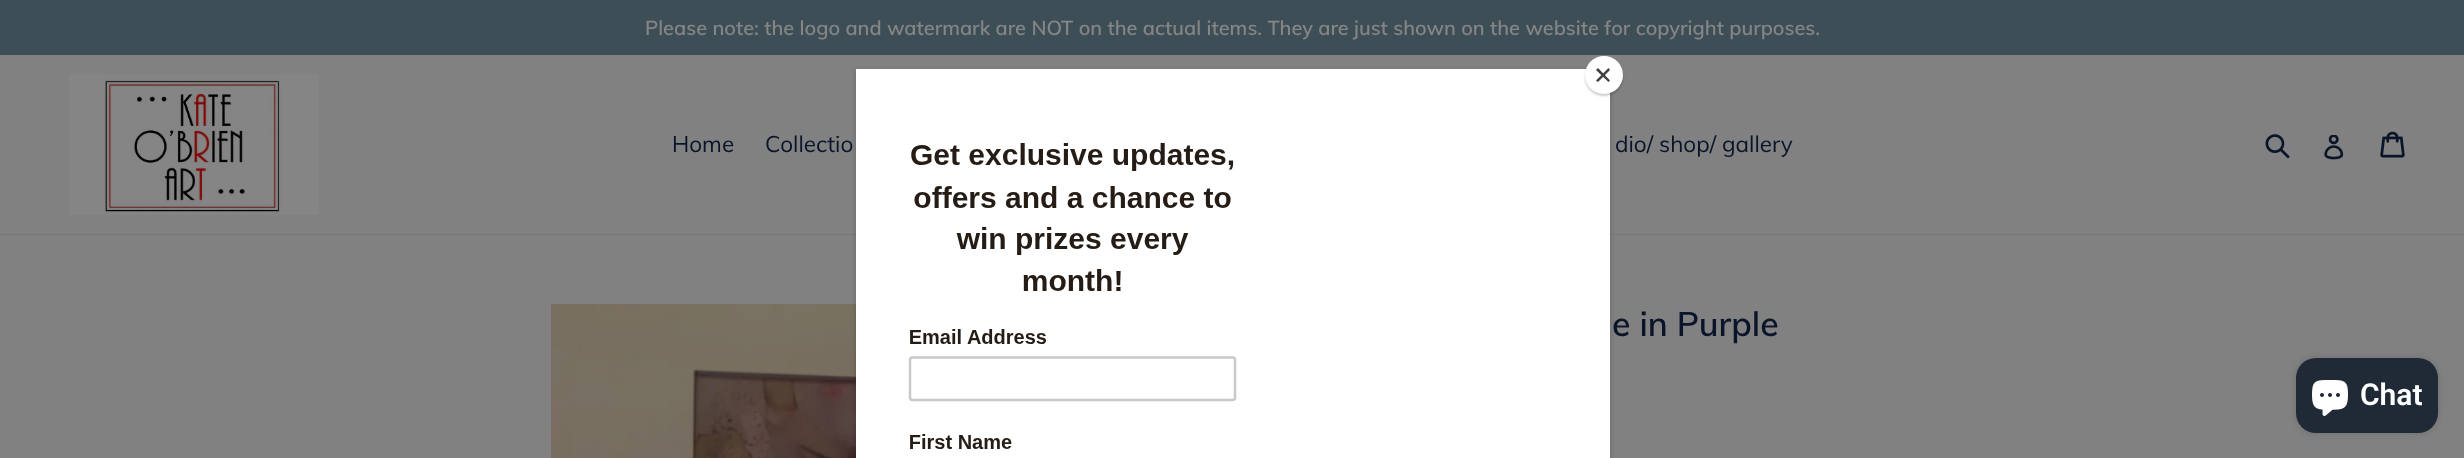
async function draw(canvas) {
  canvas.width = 2464
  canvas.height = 458
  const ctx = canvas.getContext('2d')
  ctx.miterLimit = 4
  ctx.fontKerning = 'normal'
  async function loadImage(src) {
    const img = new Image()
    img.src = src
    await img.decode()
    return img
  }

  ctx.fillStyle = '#818181'
  ctx.fillRect(0, 0, 2464, 458)
  ctx.fillStyle = '#3e4e57'
  ctx.fillRect(0, 0, 2464, 55)
  ctx.font = '600 20px Muli'
  ctx.fillStyle = '#858585'
  ctx.fillText('Please note: the logo and watermark are NOT on the actual items. They are just shown on the website for copyright purposes.', 645, 35)
  ctx.fillStyle = '#777'
  ctx.fillRect(0, 234, 2464, 1)
  ctx.drawImage(await loadImage('image0.png'), 69, 74, 250, 141)
  ctx.font = '22.5px Muli'
  ctx.fillStyle = '#0b152a'
  ctx.fillText('Home', 672, 152)
  ctx.fillText('Collectio', 765, 152)
  ctx.fillText('dio/ shop/ gallery', 1615, 152)
  ctx.drawImage(await loadImage('image1.png'), 2265, 134, 25, 25)
  ctx.drawImage(await loadImage('image2.png'), 2324, 135, 20, 25)
  ctx.drawImage(await loadImage('image3.png'), 2380, 131, 25, 27)
  ctx.drawImage(await loadImage('image5.png'), 551, 304, 305, 154)
  ctx.fillStyle = '#00000033'
  ctx.filter = 'blur(2.5px)'
  ctx.beginPath()
  ctx.rect(856, 71, 754, 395)
  ctx.fill()
  ctx.filter = 'none'
  ctx.drawImage(await loadImage('image4.png'), 856, 69, 754, 389)
  ctx.filter = 'blur(1px)'
  ctx.beginPath()
  ctx.roundRect(1585, 59, 38, 37, 18.5)
  ctx.fill()
  ctx.filter = 'none'
  ctx.fillStyle = '#fff'
  ctx.beginPath()
  ctx.arc(1604, 75, 19, 0, 2 * Math.PI)
  ctx.fill()
  ctx.fillStyle = '#414141'
  ctx.beginPath()
  ctx.moveTo(1608.5, 68)
  ctx.lineTo(1610, 70)
  ctx.lineTo(1598, 82)
  ctx.lineTo(1596, 80.5)
  ctx.closePath()
  ctx.fill()
  ctx.beginPath()
  ctx.moveTo(1596, 70)
  ctx.lineTo(1598, 68)
  ctx.lineTo(1610, 80.5)
  ctx.lineTo(1608.5, 82)
  ctx.closePath()
  ctx.fill()
  ctx.font = '600 33.75px Muli'
  ctx.fillStyle = '#0b152a'
  ctx.fillText('e in Purple', 1612, 336)
  ctx.fillStyle = '#00000026'
  ctx.filter = 'blur(3px)'
  ctx.beginPath()
  ctx.roundRect(2296, 358, 142, 75, 20)
  ctx.fill()
  ctx.filter = 'none'
  ctx.fillStyle = '#202a36'
  ctx.beginPath()
  ctx.roundRect(2296, 358, 142, 75, 20)
  ctx.fill()
  ctx.drawImage(await loadImage('image6.png'), 2312, 380, 36, 36)
  ctx.font = '600 30px Roboto'
  ctx.fillStyle = '#fff'
  ctx.fillText('Chat', 2360, 405)
}

draw(document.querySelector('canvas'))
